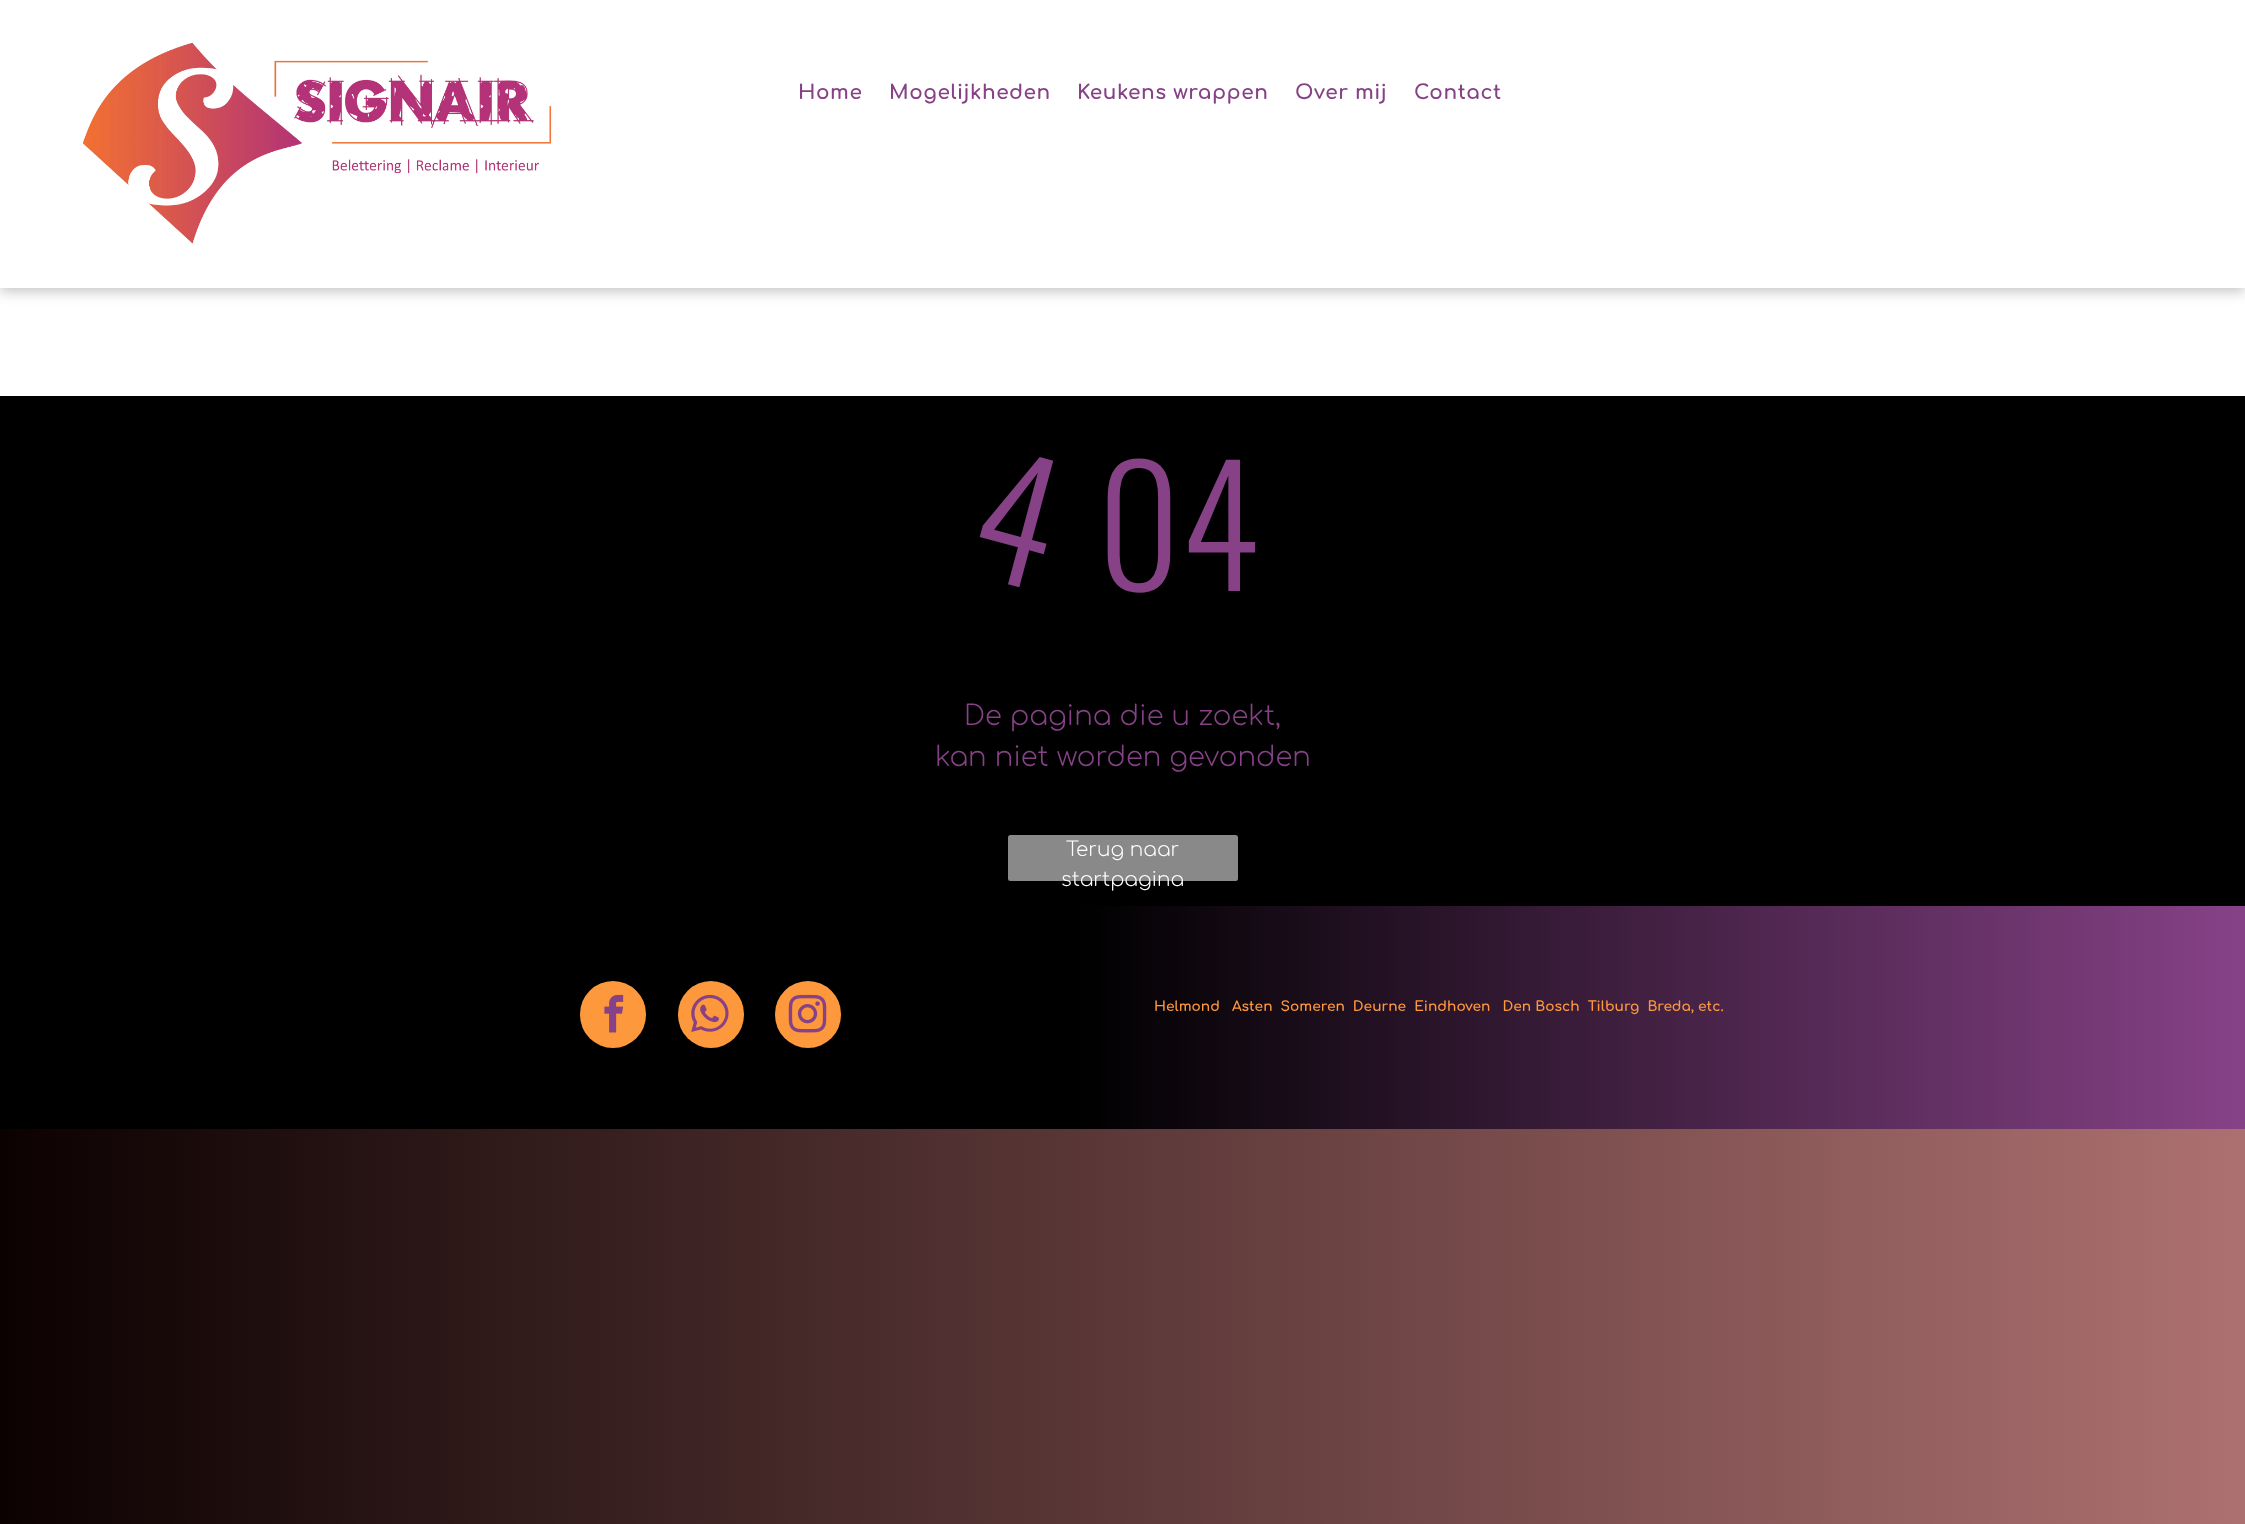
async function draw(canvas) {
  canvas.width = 2245
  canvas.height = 1524
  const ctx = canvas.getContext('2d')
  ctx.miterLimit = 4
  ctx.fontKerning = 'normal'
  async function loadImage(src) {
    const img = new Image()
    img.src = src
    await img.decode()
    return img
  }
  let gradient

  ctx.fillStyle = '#fff'
  ctx.fillRect(0, 0, 2245, 1524)
  gradient = ctx.createLinearGradient(0, 763, 2245, 763)
  gradient.addColorStop(0, '#0c0101')
  gradient.addColorStop(1, '#ad7070')
  ctx.fillStyle = gradient
  ctx.fillRect(0, 1129, 2245, 395)
  ctx.fillStyle = '#00000040'
  ctx.filter = 'blur(7px)'
  ctx.beginPath()
  ctx.rect(0, 4, 2245, 287)
  ctx.fill()
  ctx.filter = 'none'
  ctx.fillStyle = '#fff'
  ctx.fillRect(0, 0, 2245, 288)
  ctx.drawImage(await loadImage('image0.png'), 83, 43, 469, 201)
  ctx.letterSpacing = '0.6px'
  ctx.font = 'bold 20px Comfortaa'
  ctx.fillStyle = '#874287'
  ctx.fillText('Home', 798, 99)
  ctx.fillText('Mogelijkheden', 889, 99)
  ctx.fillText('Keukens wrappen', 1077, 99)
  ctx.fillText('Over mij', 1295, 99)
  ctx.fillText('Contact', 1414, 99)
  ctx.fillStyle = '#000'
  ctx.fillRect(0, 396, 2245, 510)
  ctx.letterSpacing = '0px'
  ctx.font = '300 162px Oswald'
  ctx.fillStyle = '#874287'
  ctx.save()
  ctx.translate(962, 572)
  ctx.rotate(15 * Math.PI / 180)
  ctx.fillText('4', 0, 0)
  ctx.restore()
  ctx.fillText('04', 1097, 591)
  ctx.font = '300 27.5px Comfortaa'
  ctx.fillText('De pagina die u zoekt,', 964, 725)
  ctx.fillText('kan niet worden gevonden', 935, 766)
  ctx.fillStyle = '#898989'
  ctx.beginPath()
  ctx.roundRect(1008, 835, 230, 46, 2.5)
  ctx.fill()
  ctx.font = '300 20px Comfortaa'
  ctx.fillStyle = '#fff'
  ctx.fillText('Terug naar', 1066, 856)
  ctx.fillText('startpagina', 1061, 886)
  gradient = ctx.createLinearGradient(0, 1018, 2245, 1018)
  gradient.addColorStop(0.48, '#000')
  gradient.addColorStop(1, '#874287')
  ctx.fillStyle = gradient
  ctx.fillRect(0, 906, 2245, 223)
  ctx.fillStyle = '#fd983c'
  ctx.beginPath()
  ctx.roundRect(580, 981, 66, 67, 33)
  ctx.fill()
  ctx.drawImage(await loadImage('image1.png'), 604, 994, 20, 39)
  ctx.beginPath()
  ctx.roundRect(678, 981, 66, 67, 33)
  ctx.fill()
  ctx.drawImage(await loadImage('image2.png'), 691, 994, 38, 38)
  ctx.beginPath()
  ctx.roundRect(775, 981, 66, 67, 33)
  ctx.fill()
  ctx.drawImage(await loadImage('image3.png'), 788, 994, 39, 39)
  ctx.font = 'bold 13.75px Comfortaa'
  ctx.fillText('Helmond   Asten  Someren  Deurne  Eindhoven   Den Bosch  Tilburg  Breda, etc.', 1154, 1011)
}

draw(document.querySelector('canvas'))
